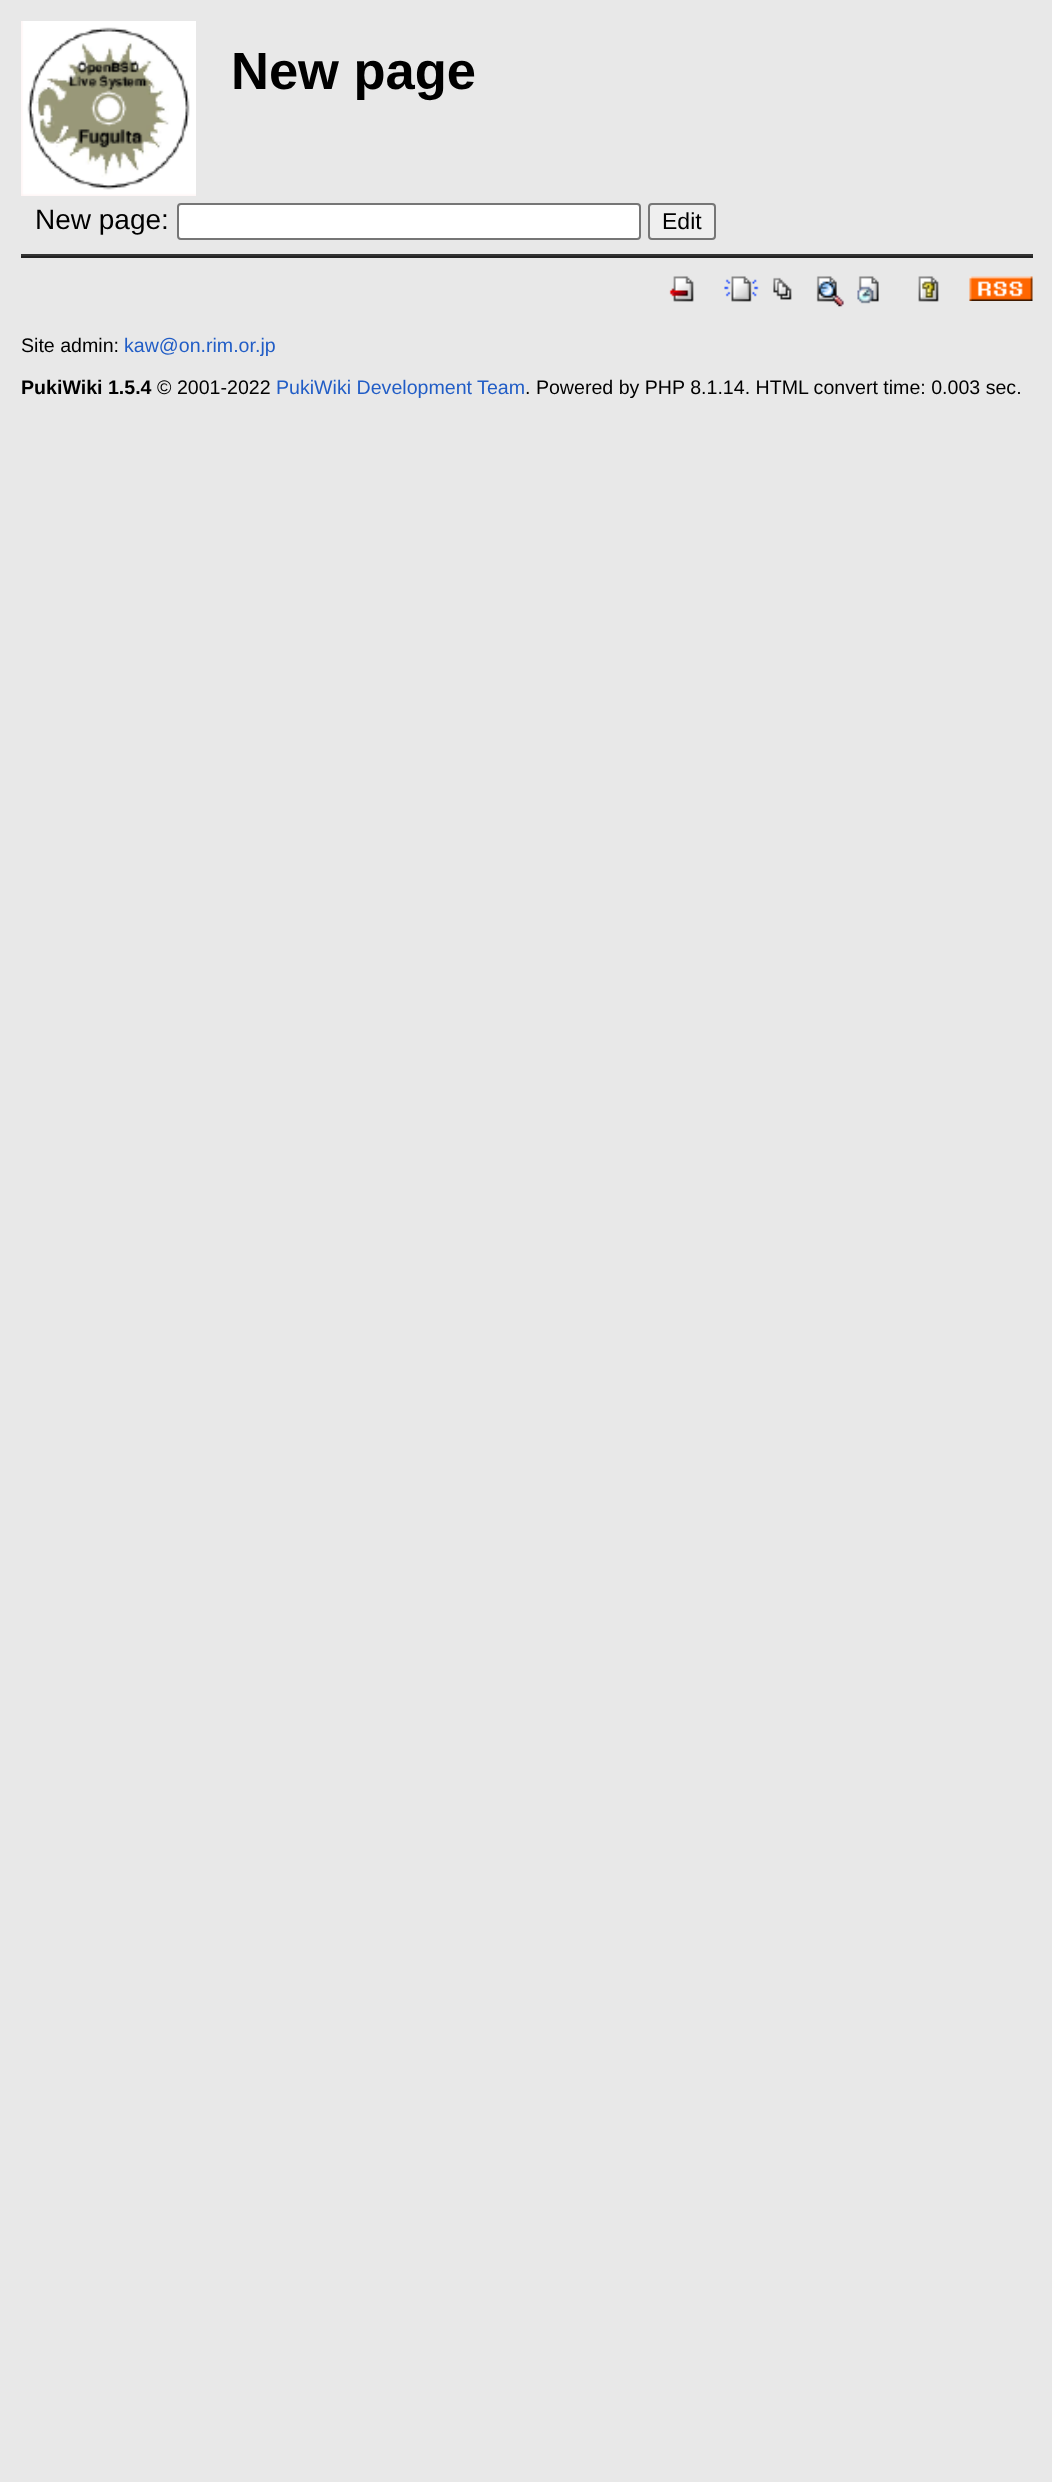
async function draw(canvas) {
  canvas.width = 1052
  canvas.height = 2482
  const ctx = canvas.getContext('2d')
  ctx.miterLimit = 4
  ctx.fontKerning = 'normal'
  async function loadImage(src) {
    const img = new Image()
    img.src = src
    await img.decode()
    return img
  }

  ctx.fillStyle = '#e8e8e8'
  ctx.fillRect(0, 0, 1052, 2482)
  ctx.drawImage(await loadImage('image0.png'), 21, 21, 175, 175)
  ctx.font = 'bold 52.5px Liberation Sans'
  ctx.fillStyle = '#000'
  ctx.fillText('New page', 231, 89)
  ctx.font = '28px Liberation Sans'
  ctx.fillText('New page:', 35, 229)
  ctx.fillStyle = '#fff'
  ctx.beginPath()
  ctx.roundRect(178, 204, 462, 35, 3)
  ctx.fill()
  ctx.strokeStyle = '#767676'
  ctx.lineWidth = 2
  ctx.stroke()
  ctx.fillStyle = '#efefef'
  ctx.beginPath()
  ctx.roundRect(649, 204, 66, 35, 3)
  ctx.fill()
  ctx.stroke()
  ctx.font = '23px Liberation Sans'
  ctx.fillStyle = '#000'
  ctx.fillText('Edit', 662, 229)
  ctx.fillStyle = '#333'
  ctx.fillRect(21, 254, 1012, 2)
  ctx.fillStyle = '#222'
  ctx.fillRect(21, 256, 1012, 2)
  ctx.drawImage(await loadImage('image1.png'), 669, 276, 25, 26)
  ctx.drawImage(await loadImage('image2.png'), 724, 276, 35, 26)
  ctx.drawImage(await loadImage('image3.png'), 773, 277, 19, 23)
  ctx.drawImage(await loadImage('image4.png'), 816, 276, 28, 31)
  ctx.drawImage(await loadImage('image5.png'), 857, 276, 22, 28)
  ctx.drawImage(await loadImage('image6.png'), 918, 276, 21, 26)
  ctx.drawImage(await loadImage('image7.png'), 969, 276, 64, 25)
  ctx.font = '19.6px Liberation Sans'
  ctx.fillStyle = '#000'
  ctx.fillText('Site admin:', 21, 352)
  ctx.fillStyle = '#215dc6'
  ctx.fillText('kaw@on.rim.or.jp', 124, 352)
  ctx.font = 'bold 19.6px Liberation Sans'
  ctx.fillStyle = '#000'
  ctx.fillText('PukiWiki 1.5.4', 21, 394)
  ctx.font = '19.6px Liberation Sans'
  ctx.fillText('© 2001-2022', 157, 394)
  ctx.fillStyle = '#215dc6'
  ctx.fillText('PukiWiki Development Team', 276, 394)
  ctx.fillStyle = '#000'
  ctx.fillText('. Powered by PHP 8.1.14. HTML convert time: 0.003 sec.', 525, 394)
}

draw(document.querySelector('canvas'))
